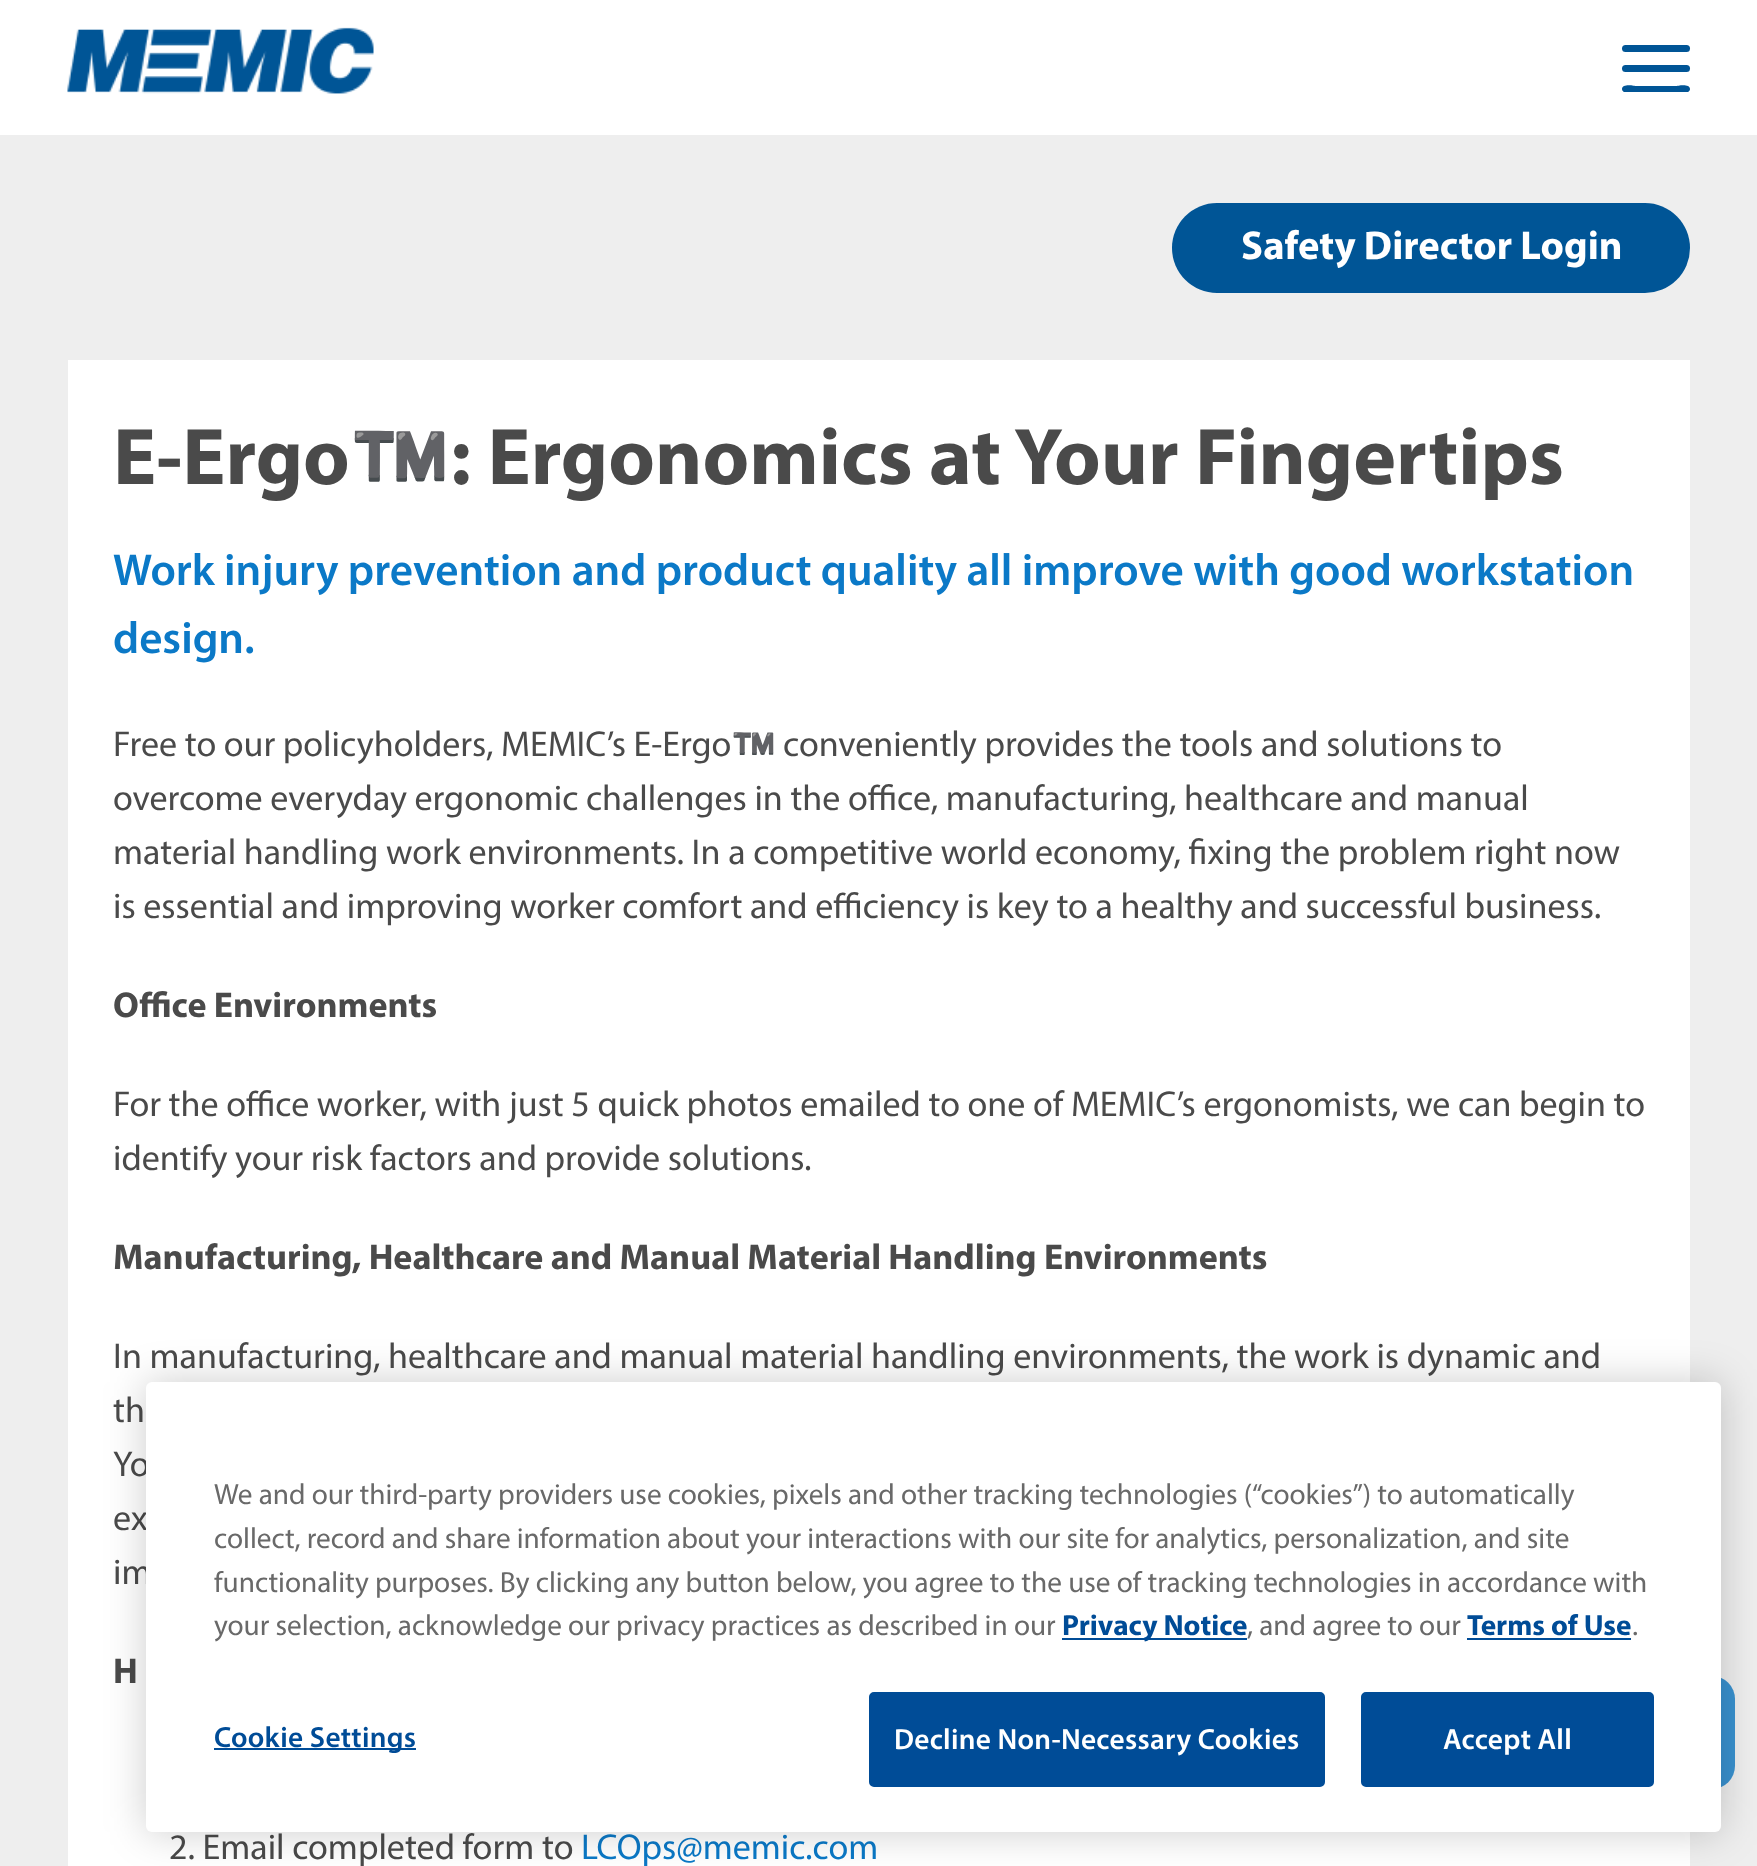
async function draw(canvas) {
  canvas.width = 1757
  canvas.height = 1866
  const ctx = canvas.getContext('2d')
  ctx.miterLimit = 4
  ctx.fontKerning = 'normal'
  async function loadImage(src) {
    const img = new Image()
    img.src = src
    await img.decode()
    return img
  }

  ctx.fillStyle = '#fff'
  ctx.fillRect(0, 0, 1757, 1866)
  ctx.drawImage(await loadImage('image0.png'), 67, 27, 307, 67)
  ctx.fillStyle = '#005596'
  ctx.beginPath()
  ctx.roundRect(1622, 45, 68, 7, 3.5)
  ctx.fill()
  ctx.beginPath()
  ctx.roundRect(1622, 65, 68, 7, 3.5)
  ctx.fill()
  ctx.save()
  ctx.beginPath()
  ctx.rect(1622, 45, 68, 47)
  ctx.clip()
  ctx.beginPath()
  ctx.moveTo(1622, 89)
  ctx.bezierCurveTo(1622, 83, 1635, 86, 1636, 86)
  ctx.lineTo(1676, 86)
  ctx.bezierCurveTo(1677, 86, 1690, 83, 1690, 89)
  ctx.bezierCurveTo(1690, 95, 1677, 92, 1676, 92)
  ctx.lineTo(1636, 92)
  ctx.bezierCurveTo(1635, 92, 1622, 95, 1622, 89)
  ctx.closePath()
  ctx.fill('evenodd')
  ctx.restore()
  ctx.fillStyle = '#eee'
  ctx.fillRect(0, 135, 1757, 1731)
  ctx.fillStyle = '#005596'
  ctx.beginPath()
  ctx.roundRect(1172, 203, 518, 90, 45)
  ctx.fill()
  ctx.font = 'bold 40.5px Myriad'
  ctx.fillStyle = '#fff'
  ctx.fillText('Safety Director Login', 1241, 259)
  ctx.fillRect(68, 360, 1622, 1506)
  ctx.font = 'bold 81px Myriad'
  ctx.fillStyle = '#4a4a4a'
  ctx.fillText('E-Ergo', 113, 484)
  ctx.font = 'bold 81px Noto Color Emoji'
  ctx.fillText('™️️', 349, 484)
  ctx.font = 'bold 81px Myriad'
  ctx.fillText(': Ergonomics at Your Fingertips', 450, 484)
  ctx.font = '600 45px Myriad'
  ctx.fillStyle = '#0b79c7'
  ctx.fillText('Work injury prevention and product quality all improve with good workstation', 113, 585)
  ctx.fillText('design.', 113, 653)
  ctx.font = '36px Myriad'
  ctx.fillStyle = '#4a4a4a'
  ctx.fillText('Free to our policyholders, MEMIC’s E-Ergo', 113, 756)
  ctx.font = '36px Noto Color Emoji'
  ctx.fillStyle = '#222'
  ctx.fillText('™️️', 731, 756)
  ctx.font = '36px Myriad'
  ctx.fillStyle = '#4a4a4a'
  ctx.fillText('conveniently provides the tools and solutions to', 783, 756)
  ctx.fillText('overcome everyday ergonomic challenges in the office, manufacturing, healthcare and manual', 113, 810)
  ctx.fillText('material handling work environments. In a competitive world economy, fixing the problem right now', 113, 864)
  ctx.fillText('is essential and improving worker comfort and efficiency is key to a healthy and successful business.', 113, 918)
  ctx.font = 'bold 36px Myriad'
  ctx.fillText('Office Environments', 113, 1017)
  ctx.font = '36px Myriad'
  ctx.fillText('For the office worker, with just 5 quick photos emailed to one of MEMIC’s ergonomists, we can begin to', 113, 1116)
  ctx.fillText('identify your risk factors and provide solutions.', 113, 1170)
  ctx.font = 'bold 36px Myriad'
  ctx.fillText('Manufacturing, Healthcare and Manual Material Handling Environments', 113, 1269)
  ctx.font = '36px Myriad'
  ctx.fillText('In manufacturing, healthcare and manual material handling environments, the work is dynamic and', 113, 1368)
  ctx.fillText('th', 113, 1422)
  ctx.fillText('Yo', 113, 1476)
  ctx.fillText('ex', 113, 1530)
  ctx.fillText('im', 113, 1584)
  ctx.font = 'bold 36px Myriad'
  ctx.fillText('H', 113, 1683)
  ctx.font = '36px Myriad'
  ctx.fillText('2. Email completed form to', 169, 1859)
  ctx.fillStyle = '#0b79c7'
  ctx.fillText('LCOps@memic.com', 581, 1859)
  ctx.fillStyle = '#0b79c7cc'
  ctx.beginPath()
  ctx.roundRect(1620, 1676, 115, 113, 23)
  ctx.fill()
  ctx.fillStyle = '#00000033'
  ctx.filter = 'blur(20px)'
  ctx.beginPath()
  ctx.roundRect(146, 1382, 1575, 450, 6)
  ctx.fill()
  ctx.filter = 'none'
  ctx.fillStyle = '#fff'
  ctx.beginPath()
  ctx.roundRect(146, 1382, 1575, 450, 6)
  ctx.fill()
  ctx.font = '29.25px Myriad'
  ctx.fillStyle = '#696969'
  ctx.fillText('We and our third-party providers use cookies, pixels and other tracking technologies (“cookies”) to automatically', 214, 1504)
  ctx.fillText('collect, record and share information about your interactions with our site for analytics, personalization, and site', 214, 1548)
  ctx.fillText('functionality purposes. By clicking any button below, you agree to the use of tracking technologies in accordance with', 214, 1592)
  ctx.fillText('your selection, acknowledge our privacy practices as described in our', 214, 1635)
  ctx.fillStyle = '#004c97'
  ctx.fillRect(1062, 1638, 185, 2)
  ctx.font = 'bold 29.25px Myriad'
  ctx.fillText('Privacy Notice', 1062, 1635)
  ctx.font = '29.25px Myriad'
  ctx.fillStyle = '#696969'
  ctx.fillText(', and agree to our', 1247, 1635)
  ctx.font = 'bold 29.25px Myriad'
  ctx.fillStyle = '#004c97'
  ctx.fillText('Terms of Use', 1467, 1635)
  ctx.fillRect(1467, 1638, 164, 2)
  ctx.font = '29.25px Myriad'
  ctx.fillStyle = '#696969'
  ctx.fillText('.', 1632, 1635)
  ctx.fillStyle = '#004c97'
  ctx.fillRect(214, 1748, 202, 2)
  ctx.letterSpacing = '0.3px'
  ctx.font = '600 29.25px Myriad'
  ctx.fillText('Cookie Settings', 214, 1747)
  ctx.beginPath()
  ctx.roundRect(870, 1693, 454, 93, 4)
  ctx.fill()
  ctx.strokeStyle = '#004c97'
  ctx.lineWidth = 2
  ctx.stroke()
  ctx.fillStyle = '#fff'
  ctx.fillText('Decline Non-Necessary Cookies', 894, 1749)
  ctx.fillStyle = '#004c97'
  ctx.beginPath()
  ctx.roundRect(1362, 1693, 291, 93, 4)
  ctx.fill()
  ctx.stroke()
  ctx.fillStyle = '#fff'
  ctx.fillText('Accept All', 1443, 1749)
}

draw(document.querySelector('canvas'))
